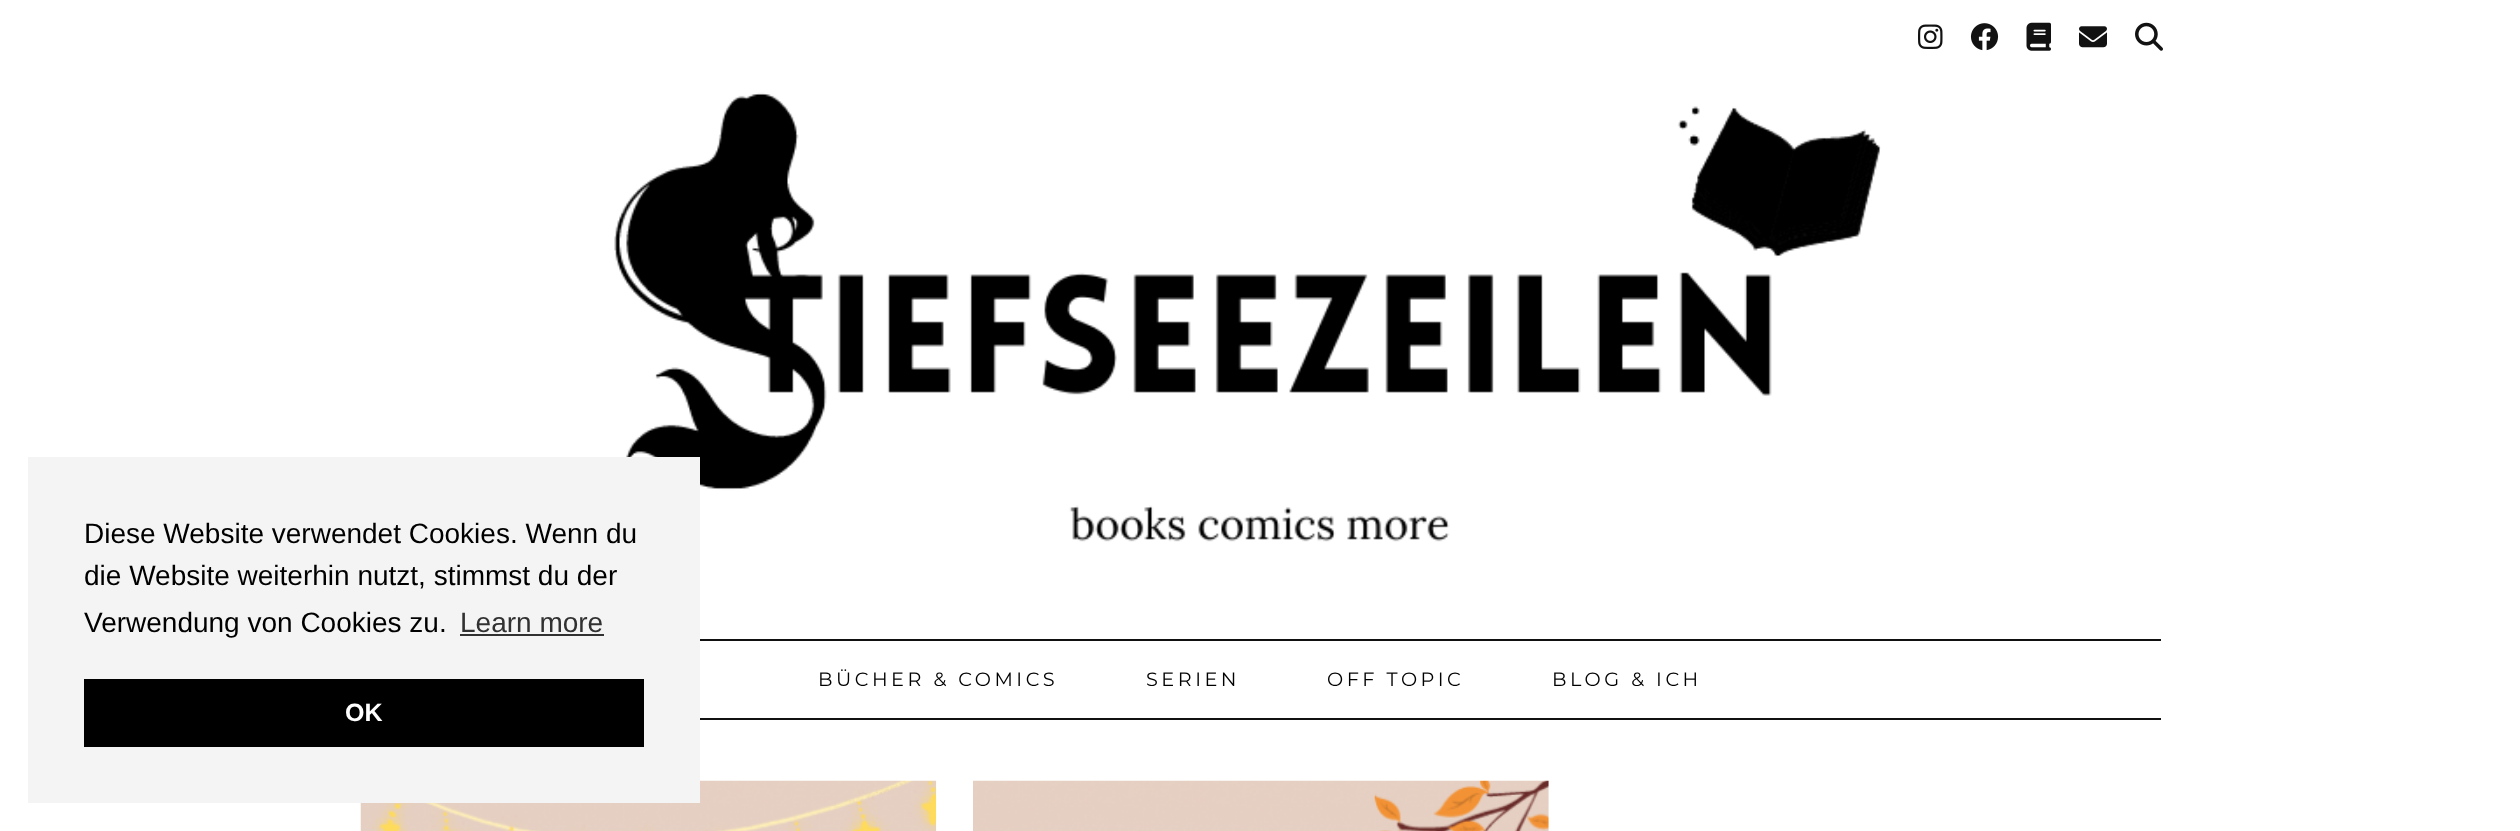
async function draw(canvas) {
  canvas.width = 2520
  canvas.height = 831
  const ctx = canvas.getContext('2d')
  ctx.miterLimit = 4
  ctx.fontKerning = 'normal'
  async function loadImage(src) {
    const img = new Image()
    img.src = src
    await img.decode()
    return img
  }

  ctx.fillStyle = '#fff'
  ctx.fillRect(0, 0, 2520, 831)
  ctx.drawImage(await loadImage('image0.png'), 1918, 24, 25, 25)
  ctx.drawImage(await loadImage('image1.png'), 1970, 23, 29, 28)
  ctx.drawImage(await loadImage('image2.png'), 2026, 22, 25, 29)
  ctx.drawImage(await loadImage('image3.png'), 2079, 26, 28, 22)
  ctx.drawImage(await loadImage('image4.png'), 2135, 22, 28, 29)
  ctx.drawImage(await loadImage('image5.png'), 614, 92, 1267, 450)
  ctx.drawImage(await loadImage('image6.png'), 360, 780, 577, 51)
  ctx.fillStyle = '#f4f4f4'
  ctx.fillRect(28, 457, 672, 346)
  ctx.font = '28px Liberation Sans'
  ctx.fillStyle = '#000'
  ctx.fillText('Diese Website verwendet Cookies. Wenn du', 84, 543)
  ctx.fillText('die Website weiterhin nutzt, stimmst du der', 84, 585)
  ctx.fillText('Verwendung von Cookies zu.', 84, 632)
  ctx.fillStyle = '#313131'
  ctx.fillText('Learn more', 460, 632)
  ctx.fillRect(460, 634, 144, 2)
  ctx.fillStyle = '#000'
  ctx.fillRect(84, 679, 560, 68)
  ctx.font = 'bold 25px Liberation Sans'
  ctx.fillStyle = '#fff'
  ctx.fillText('OK', 345, 721)
  ctx.fillStyle = '#111'
  ctx.fillRect(700, 639, 1461, 2)
  ctx.fillRect(700, 718, 1461, 2)
  ctx.letterSpacing = '3.5px'
  ctx.font = '19.25px Montserrat'
  ctx.fillStyle = '#000'
  ctx.fillText('BÜCHER & COMICS', 818, 686)
  ctx.fillText('SERIEN', 1146, 686)
  ctx.fillText('OFF TOPIC', 1327, 686)
  ctx.fillText('BLOG & ICH', 1552, 686)
  ctx.drawImage(await loadImage('image7.png'), 973, 780, 576, 51)
}

draw(document.querySelector('canvas'))
